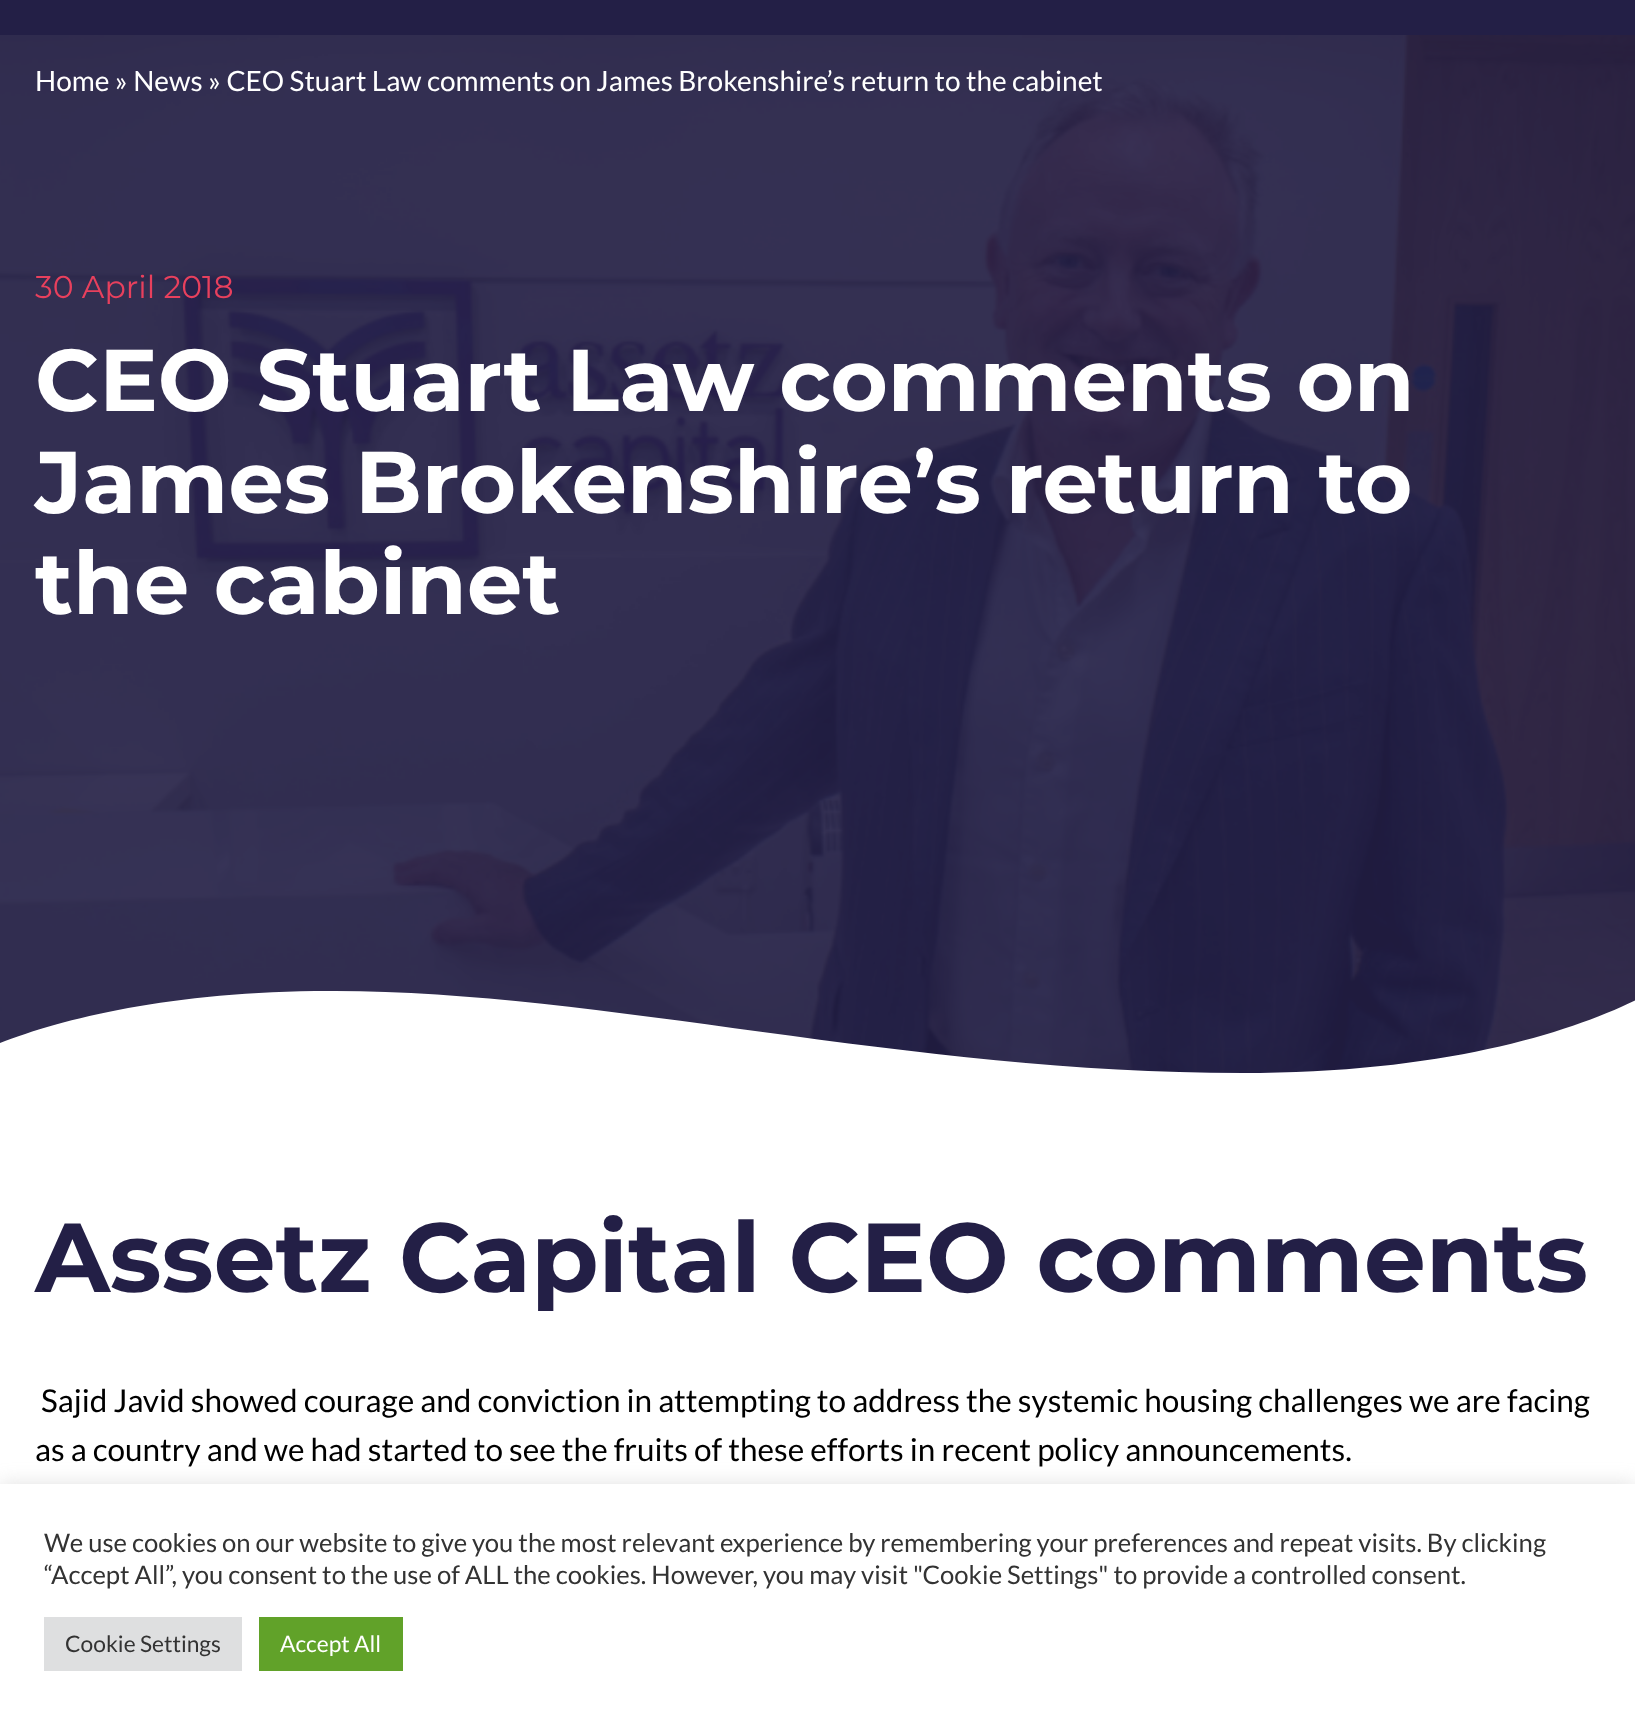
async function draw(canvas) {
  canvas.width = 1635
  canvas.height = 1723
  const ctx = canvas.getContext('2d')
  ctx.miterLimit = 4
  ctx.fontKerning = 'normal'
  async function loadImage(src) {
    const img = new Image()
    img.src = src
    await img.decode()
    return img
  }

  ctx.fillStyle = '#fff'
  ctx.fillRect(0, 0, 1635, 1723)
  ctx.fillStyle = '#231f46'
  ctx.fillRect(0, 0, 1635, 1073)
  ctx.drawImage(await loadImage('image0.png'), 0, 35, 1635, 1037)
  ctx.font = '28px Lato'
  ctx.fillStyle = '#fff'
  ctx.fillText('Home » News » CEO Stuart Law comments on James Brokenshire’s return to the cabinet', 35, 91)
  ctx.font = '31.5px Montserrat'
  ctx.fillStyle = '#e8405d'
  ctx.fillText('30 April 2018', 35, 298)
  ctx.font = 'bold 87.5px Montserrat'
  ctx.fillStyle = '#fff'
  ctx.fillText('CEO Stuart Law comments on', 35, 411)
  ctx.fillText('James Brokenshire’s return to', 35, 513)
  ctx.fillText('the cabinet', 35, 614)
  ctx.beginPath()
  ctx.moveTo(0, 1043)
  ctx.bezierCurveTo(62, 1019, 170, 991, 330, 991)
  ctx.bezierCurveTo(599, 990, 904, 1073, 1242, 1073)
  ctx.bezierCurveTo(1443, 1073, 1568, 1033, 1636, 1000)
  ctx.lineTo(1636, 1074)
  ctx.lineTo(0, 1074)
  ctx.closePath()
  ctx.fill()
  ctx.font = 'bold 98px Montserrat'
  ctx.fillStyle = '#231f46'
  ctx.fillText('Assetz Capital CEO comments', 35, 1292)
  ctx.font = '31.5px Lato'
  ctx.fillStyle = '#000'
  ctx.fillText('Sajid Javid showed courage and conviction in attempting to address the systemic housing challenges we are facing', 41, 1412)
  ctx.fillText('as a country and we had started to see the fruits of these efforts in recent policy announcements.', 35, 1461)
  ctx.fillStyle = '#acabab4d'
  ctx.filter = 'blur(9px)'
  ctx.beginPath()
  ctx.rect(0, 1482, 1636, 240)
  ctx.fill()
  ctx.filter = 'none'
  ctx.fillStyle = '#fff'
  ctx.fillRect(0, 1484, 1635, 239)
  ctx.font = '25.67px Lato'
  ctx.fillStyle = '#333'
  ctx.fillText('We use cookies on our website to give you the most relevant experience by remembering your preferences and repeat visits. By clicking', 44, 1552)
  ctx.fillText('“Accept All”, you consent to the use of ALL the cookies. However, you may visit "Cookie Settings" to provide a controlled consent.', 44, 1584)
  ctx.fillStyle = '#dedfe0'
  ctx.fillRect(44, 1617, 198, 54)
  ctx.font = '22.75px Lato'
  ctx.fillStyle = '#333'
  ctx.fillText('Cookie Settings', 65, 1652)
  ctx.fillStyle = '#61a229'
  ctx.fillRect(259, 1617, 144, 54)
  ctx.fillStyle = '#fff'
  ctx.fillText('Accept All', 280, 1652)
}

draw(document.querySelector('canvas'))
